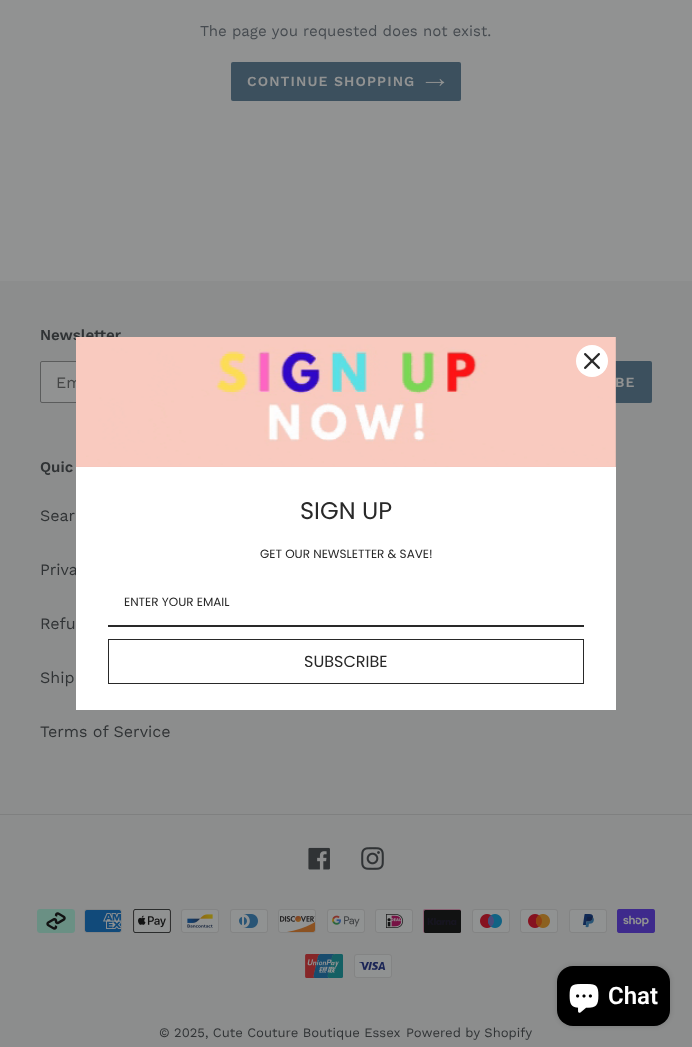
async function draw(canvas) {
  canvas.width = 692
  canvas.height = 1047
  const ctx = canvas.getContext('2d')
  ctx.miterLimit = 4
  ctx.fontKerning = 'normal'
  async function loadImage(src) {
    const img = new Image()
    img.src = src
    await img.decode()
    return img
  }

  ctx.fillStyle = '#919292'
  ctx.fillRect(0, 0, 692, 1047)
  ctx.font = '15px Work Sans'
  ctx.fillStyle = '#464b50'
  ctx.fillText('The page you requested does not exist.', 200, 36)
  ctx.fillStyle = '#3c505e'
  ctx.beginPath()
  ctx.roundRect(231, 62, 230, 39, 2)
  ctx.fill()
  ctx.letterSpacing = '1.1px'
  ctx.font = '600 14px Work Sans'
  ctx.fillStyle = '#919292'
  ctx.fillText('CONTINUE SHOPPING', 247, 86)
  ctx.drawImage(await loadImage('image0.png'), 425, 78, 20, 8)
  ctx.fillStyle = '#8c8d8d'
  ctx.fillRect(0, 281, 692, 766)
  ctx.letterSpacing = '0px'
  ctx.font = '600 15px Work Sans'
  ctx.fillStyle = '#303335'
  ctx.fillText('Newsletter', 40, 340)
  ctx.fillStyle = '#919292'
  ctx.beginPath()
  ctx.roundRect(40.5, 361.5, 490, 41, [1.5, 0, 0, 1.5])
  ctx.fill()
  ctx.strokeStyle = '#5b5c5c'
  ctx.stroke()
  ctx.font = '16px Work Sans'
  ctx.fillStyle = '#444545'
  ctx.fillText('Em', 56, 388)
  ctx.fillStyle = '#3c505e'
  ctx.beginPath()
  ctx.roundRect(531, 361, 121, 42, [0, 2, 2, 0])
  ctx.fill()
  ctx.letterSpacing = '1.1px'
  ctx.font = '600 14px Work Sans'
  ctx.fillStyle = '#919292'
  ctx.fillText('BE', 615, 387)
  ctx.letterSpacing = '0px'
  ctx.font = '600 15px Work Sans'
  ctx.fillStyle = '#303335'
  ctx.fillText('Quic', 40, 472)
  ctx.font = '16px Work Sans'
  ctx.fillText('Sear', 40, 521)
  ctx.fillText('Priva', 40, 575)
  ctx.fillText('Refu', 40, 629)
  ctx.fillText('Ship', 40, 683)
  ctx.fillText('Terms of Service', 40, 737)
  ctx.fillStyle = '#7f8080'
  ctx.fillRect(0, 814, 692, 1)
  ctx.drawImage(await loadImage('image1.png'), 308, 847, 22, 23)
  ctx.drawImage(await loadImage('image2.png'), 361, 847, 23, 23)
  ctx.drawImage(await loadImage('image3.png'), 37, 909, 38, 24)
  ctx.drawImage(await loadImage('image4.png'), 84, 909, 38, 24)
  ctx.drawImage(await loadImage('image5.png'), 133, 909, 38, 24)
  ctx.drawImage(await loadImage('image6.png'), 181, 909, 38, 24)
  ctx.drawImage(await loadImage('image7.png'), 230, 909, 38, 24)
  ctx.drawImage(await loadImage('image8.png'), 278, 909, 38, 24)
  ctx.drawImage(await loadImage('image9.png'), 327, 909, 38, 24)
  ctx.drawImage(await loadImage('image10.png'), 375, 909, 38, 24)
  ctx.drawImage(await loadImage('image11.png'), 423, 909, 38, 24)
  ctx.drawImage(await loadImage('image12.png'), 472, 909, 38, 24)
  ctx.drawImage(await loadImage('image13.png'), 520, 909, 38, 24)
  ctx.drawImage(await loadImage('image14.png'), 569, 909, 38, 24)
  ctx.drawImage(await loadImage('image15.png'), 617, 909, 38, 24)
  ctx.drawImage(await loadImage('image16.png'), 305, 954, 38, 24)
  ctx.drawImage(await loadImage('image17.png'), 354, 954, 38, 24)
  ctx.font = '13px Work Sans'
  ctx.fillStyle = '#303335'
  ctx.fillText('© 2025, Cute Couture Boutique Essex', 159, 1037)
  ctx.fillText('Powered by Shopify', 406, 1037)
  ctx.drawImage(await loadImage('image19.png'), 76, 337, 540, 130)
  ctx.fillStyle = '#fff'
  ctx.beginPath()
  ctx.arc(592, 361, 16, 0, 2 * Math.PI)
  ctx.fill()
  ctx.drawImage(await loadImage('image18.png'), 584, 353, 16, 16)
  ctx.fillRect(76, 467, 540, 243)
  ctx.font = '24px Poppins'
  ctx.fillStyle = '#292929'
  ctx.fillText('SIGN UP', 300, 519)
  ctx.font = '12px Poppins'
  ctx.fillText('GET OUR NEWSLETTER & SAVE!', 260, 558)
  ctx.fillRect(108, 625, 476, 2)
  ctx.fillText('ENTER YOUR EMAIL', 124, 606)
  ctx.strokeStyle = '#292929'
  ctx.strokeRect(108.5, 639.5, 475, 44)
  ctx.font = '16px Poppins'
  ctx.fillText('SUBSCRIBE', 304, 667)
  ctx.fillStyle = '#00000026'
  ctx.filter = 'blur(2.5px)'
  ctx.beginPath()
  ctx.roundRect(557, 966, 113, 60, 16)
  ctx.fill()
  ctx.filter = 'none'
  ctx.fillStyle = '#000'
  ctx.beginPath()
  ctx.roundRect(557, 966, 113, 60, 16)
  ctx.fill()
  ctx.drawImage(await loadImage('image20.png'), 569, 984, 30, 29)
  ctx.font = '600 24px Roboto'
  ctx.fillStyle = '#fff'
  ctx.fillText('Chat', 608, 1004)
}

draw(document.querySelector('canvas'))
